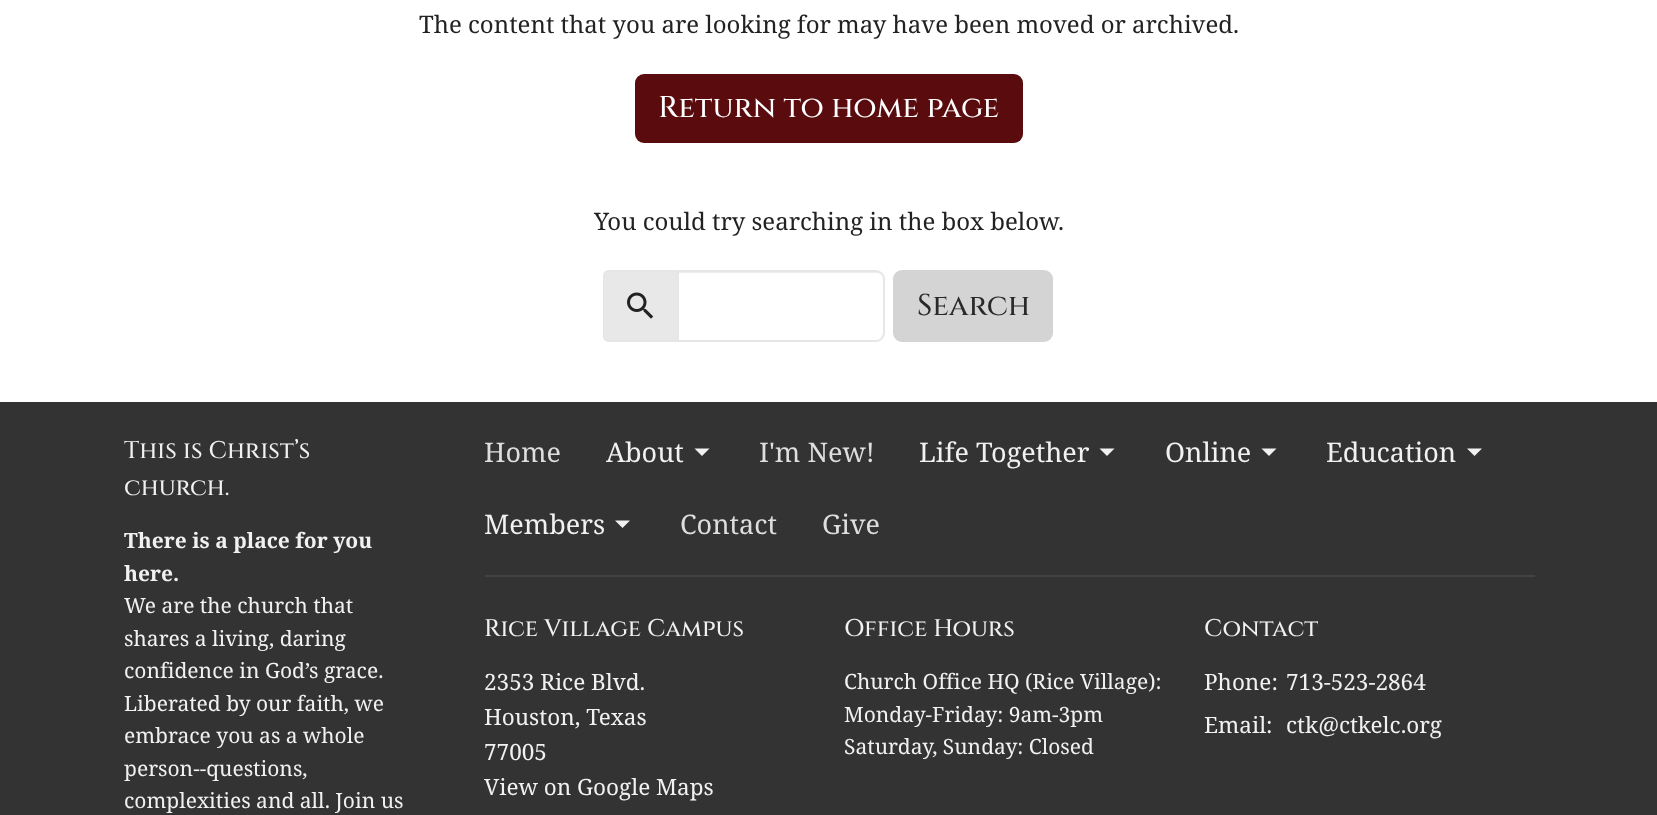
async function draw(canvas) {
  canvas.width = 1657
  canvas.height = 815
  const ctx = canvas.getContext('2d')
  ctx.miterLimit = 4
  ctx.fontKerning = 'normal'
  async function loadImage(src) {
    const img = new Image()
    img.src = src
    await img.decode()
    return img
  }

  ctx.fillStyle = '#fff'
  ctx.fillRect(0, 0, 1657, 815)
  ctx.font = '24px Noto Serif Georgian'
  ctx.fillStyle = '#222'
  ctx.fillText('The content that you are looking for may have been moved or archived.', 419, 33)
  ctx.fillStyle = '#590b0e'
  ctx.beginPath()
  ctx.roundRect(635, 74, 388, 69, 9)
  ctx.fill()
  ctx.font = '500 30px Cinzel'
  ctx.fillStyle = '#fff'
  ctx.fillText('Return to home page', 658, 117)
  ctx.font = '24px Noto Serif Georgian'
  ctx.fillStyle = '#222'
  ctx.fillText('You could try searching in the box below.', 594, 230)
  ctx.fillStyle = '#e8e8e8'
  ctx.beginPath()
  ctx.roundRect(603, 270, 74, 72, [6, 0, 0, 6])
  ctx.fill()
  ctx.fillStyle = '#e6e6e6'
  ctx.beginPath()
  ctx.moveTo(609, 270)
  ctx.lineTo(676, 270)
  ctx.lineTo(676, 342)
  ctx.lineTo(609, 342)
  ctx.bezierCurveTo(606, 342, 603, 339, 603, 336)
  ctx.lineTo(603, 276)
  ctx.bezierCurveTo(603, 273, 606, 270, 609, 270)
  ctx.closePath()
  ctx.moveTo(609, 272)
  ctx.lineTo(676, 272)
  ctx.lineTo(676, 340)
  ctx.lineTo(609, 340)
  ctx.bezierCurveTo(607, 340, 604, 338, 604, 336)
  ctx.lineTo(604, 276)
  ctx.bezierCurveTo(604, 274, 607, 272, 609, 272)
  ctx.closePath()
  ctx.fill('evenodd')
  ctx.drawImage(await loadImage('image0.png'), 627, 292, 27, 27)
  ctx.fillStyle = '#ececec'
  ctx.beginPath()
  ctx.moveTo(678, 273)
  ctx.lineTo(876, 273)
  ctx.bezierCurveTo(880, 273, 884, 276, 884, 280)
  ctx.bezierCurveTo(884, 276, 880, 272, 876, 272)
  ctx.lineTo(678, 272)
  ctx.closePath()
  ctx.fill()
  ctx.beginPath()
  ctx.roundRect(678, 271, 206, 70, [0, 8, 8, 0])
  ctx.strokeStyle = '#e6e6e6'
  ctx.lineWidth = 2
  ctx.stroke()
  ctx.fillStyle = '#d4d4d4'
  ctx.beginPath()
  ctx.roundRect(893, 270, 160, 72, 9)
  ctx.fill()
  ctx.font = '500 30px Cinzel'
  ctx.fillStyle = '#292929'
  ctx.fillText('Search', 917, 315)
  ctx.fillStyle = '#333'
  ctx.fillRect(0, 402, 1657, 413)
  ctx.font = '500 24px Cinzel'
  ctx.fillStyle = '#f1f1f1'
  ctx.fillText('This is Christ’s', 124, 458)
  ctx.fillText('church.', 124, 495)
  ctx.font = 'bold 21px Noto Serif Georgian'
  ctx.fillText('There is a place for you', 124, 548)
  ctx.fillText('here.', 124, 581)
  ctx.font = '21px Noto Serif Georgian'
  ctx.fillText('We are the church that', 124, 613)
  ctx.fillText('shares a living, daring', 124, 646)
  ctx.fillText('confidence in God’s grace.', 124, 678)
  ctx.fillText('Liberated by our faith, we', 124, 711)
  ctx.fillText('embrace you as a whole', 124, 743)
  ctx.fillText('person--questions,', 124, 776)
  ctx.fillText('complexities and all. Join us', 124, 808)
  ctx.font = '27px Noto Serif Georgian'
  ctx.fillStyle = '#dedede'
  ctx.fillText('Home', 484, 462)
  ctx.fillStyle = '#f1f1f1'
  ctx.fillText('About', 606, 462)
  ctx.beginPath()
  ctx.moveTo(694.5, 448.5)
  ctx.lineTo(702, 456)
  ctx.lineTo(709.5, 448.5)
  ctx.closePath()
  ctx.fill()
  ctx.fillStyle = '#dedede'
  ctx.fillText('I\'m New!', 759, 462)
  ctx.fillStyle = '#f1f1f1'
  ctx.fillText('Life Together', 919, 462)
  ctx.beginPath()
  ctx.moveTo(1099.5, 448.5)
  ctx.lineTo(1107, 456)
  ctx.lineTo(1114.5, 448.5)
  ctx.closePath()
  ctx.fill()
  ctx.fillText('Online', 1165, 462)
  ctx.beginPath()
  ctx.moveTo(1261.5, 448.5)
  ctx.lineTo(1269, 456)
  ctx.lineTo(1276.5, 448.5)
  ctx.closePath()
  ctx.fill()
  ctx.fillText('Education', 1326, 462)
  ctx.beginPath()
  ctx.moveTo(1467, 448.5)
  ctx.lineTo(1474.5, 456)
  ctx.lineTo(1482, 448.5)
  ctx.closePath()
  ctx.fill()
  ctx.fillText('Members', 484, 534)
  ctx.beginPath()
  ctx.moveTo(615, 520.5)
  ctx.lineTo(622.5, 528)
  ctx.lineTo(630, 520.5)
  ctx.closePath()
  ctx.fill()
  ctx.fillStyle = '#dedede'
  ctx.fillText('Contact', 680, 534)
  ctx.fillText('Give', 822, 534)
  ctx.fillStyle = '#424242'
  ctx.fillRect(485, 575, 1050, 2)
  ctx.font = '500 24px Cinzel'
  ctx.fillStyle = '#f1f1f1'
  ctx.fillText('Rice Village Campus', 484, 636)
  ctx.font = '22.5px Noto Serif Georgian'
  ctx.fillText('2353 Rice Blvd.', 484, 690)
  ctx.fillText('Houston, Texas', 484, 725)
  ctx.fillText('77005', 484, 760)
  ctx.fillText('View on Google Maps', 484, 795)
  ctx.font = '500 24px Cinzel'
  ctx.fillText('Office Hours', 844, 636)
  ctx.font = '21px Noto Serif Georgian'
  ctx.fillText('Church Office HQ (Rice Village):', 844, 689)
  ctx.fillText('Monday-Friday: 9am-3pm', 844, 722)
  ctx.fillText('Saturday, Sunday: Closed', 844, 754)
  ctx.font = '500 24px Cinzel'
  ctx.fillText('Contact', 1204, 636)
  ctx.font = '22.5px Noto Serif Georgian'
  ctx.fillText('Phone:', 1204, 690)
  ctx.fillText('713-523-2864', 1286, 690)
  ctx.fillText('Email:', 1204, 733)
  ctx.fillText('ctk@ctkelc.org', 1286, 733)
}

draw(document.querySelector('canvas'))
